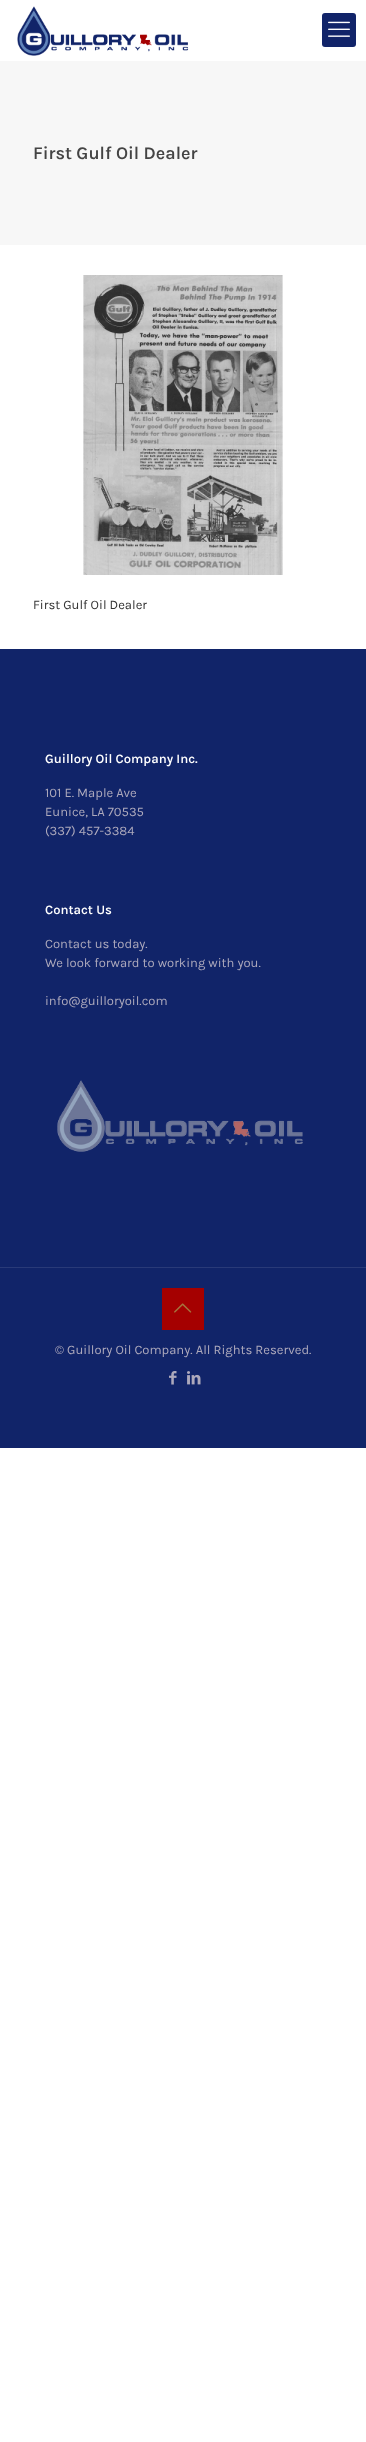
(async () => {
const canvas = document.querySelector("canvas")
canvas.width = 366
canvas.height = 2442
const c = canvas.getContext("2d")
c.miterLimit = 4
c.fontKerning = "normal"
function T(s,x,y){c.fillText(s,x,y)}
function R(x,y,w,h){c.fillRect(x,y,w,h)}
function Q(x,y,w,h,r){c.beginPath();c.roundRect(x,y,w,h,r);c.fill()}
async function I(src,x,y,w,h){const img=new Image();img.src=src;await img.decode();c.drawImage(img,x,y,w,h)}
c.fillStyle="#fff"
R(0,0,366,2442)
await I("1.png",17,6,172,50)
c.fillStyle="#112469"
Q(322,13,34,34,3)
await I("2.png",328,21,22,16)
c.fillStyle="#f7f7f7"
R(0,61,366,184)
c.font="600 18px Karla"
c.fillStyle="#444"
T("First Gulf Oil Dealer",33,159)
await I("3.png",83,275,200,300)
c.font="13px Karla"
c.fillStyle="#333"
T("First Gulf Oil Dealer",33,609)
c.fillStyle="#112469"
R(0,649,366,799)
c.font="600 13px Karla"
c.fillStyle="#fff"
T("Guillory Oil Company Inc.",45,763)
c.font="13px Karla"
c.fillStyle="#ada9bc"
T("101 E. Maple Ave",45,797)
T("Eunice, LA 70535",45,816)
T("(337) 457-3384",45,835)
c.font="600 13px Karla"
c.fillStyle="#fff"
T("Contact Us",45,914)
c.font="13px Karla"
c.fillStyle="#ada9bc"
T("Contact us today.",45,948)
T("We look forward to working with you.",45,967)
T("info@guilloryoil.com",45,1005)
await I("4.png",57,1080,246,72)
c.fillStyle="#293a78"
R(0,1267,366,1)
c.fillStyle="#a50000"
R(162,1288,42,42)
await I("5.png",174,1303,18,10)
c.fillStyle="#ada9bc"
T("© Guillory Oil Company. All Rights Reserved.",55,1354)
await I("6.png",169,1371,8,14)
await I("7.png",187,1371,14,14)
})()
